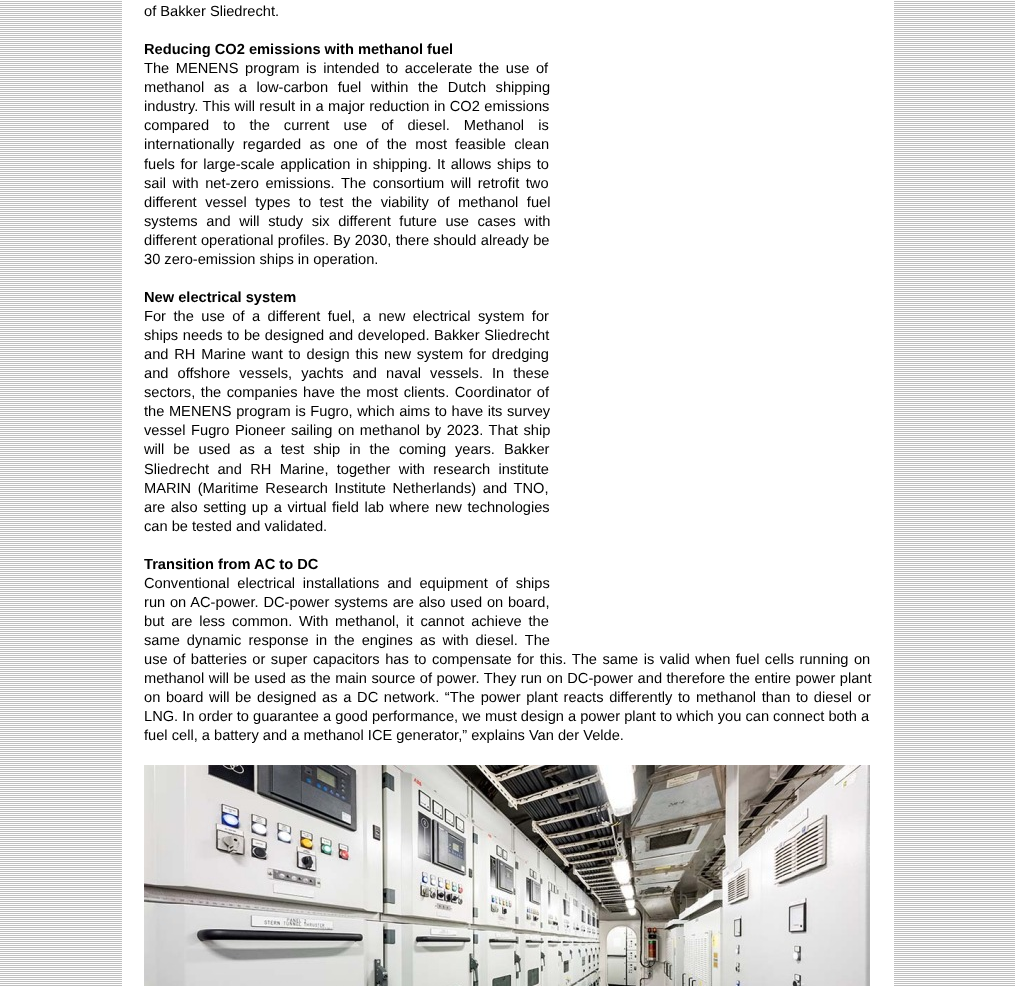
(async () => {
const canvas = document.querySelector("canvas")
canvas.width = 1015
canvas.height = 986
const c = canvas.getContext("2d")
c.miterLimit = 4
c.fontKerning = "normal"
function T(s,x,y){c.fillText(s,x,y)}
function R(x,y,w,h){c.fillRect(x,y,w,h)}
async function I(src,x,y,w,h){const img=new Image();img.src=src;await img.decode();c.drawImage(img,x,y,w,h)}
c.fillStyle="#fff"
R(0,0,1015,986)
await I("1.png",0,1,1015,985)
R(122,1,772,985)
c.font="14.65px Liberation Sans"
c.fillStyle="#000"
T("of Bakker Sliedrecht.",144,16)
c.font="bold 14.65px Liberation Sans"
T("Reducing CO2 emissions with methanol fuel",144,54)
c.wordSpacing="2.5px"
c.font="14.65px Liberation Sans"
T("The MENENS program is intended to accelerate the use of",144,73)
c.wordSpacing="5.5px"
T("methanol as a low-carbon fuel within the Dutch shipping",144,92)
c.wordSpacing="0.4px"
T("industry. This will result in a major reduction in CO2 emissions",144,111)
c.wordSpacing="10px"
T("compared to the current use of diesel. Methanol is",144,130)
c.wordSpacing="4.25px"
T("internationally regarded as one of the most feasible clean",144,149)
c.wordSpacing="1.5px"
T("fuels for large-scale application in shipping. It allows ships to",144,169)
c.wordSpacing="2.5px"
T("sail with net-zero emissions. The consortium will retrofit two",144,188)
c.wordSpacing="4.5px"
T("different vessel types to test the viability of methanol fuel",144,207)
T("systems and will study six different future use cases with",144,226)
c.wordSpacing="0.25px"
T("different operational profiles. By 2030, there should already be",144,245)
c.wordSpacing="0px"
T("30 zero-emission ships in operation.",144,264)
c.font="bold 14.65px Liberation Sans"
T("New electrical system",144,302)
c.wordSpacing="3.4px"
c.font="14.65px Liberation Sans"
T("For the use of a different fuel, a new electrical system for",144,321)
c.wordSpacing="0.5px"
T("ships needs to be designed and developed. Bakker Sliedrecht",144,340)
c.wordSpacing="1.75px"
T("and RH Marine want to design this new system for dredging",144,359)
c.wordSpacing="5px"
T("and offshore vessels, yachts and naval vessels. In these",144,378)
c.wordSpacing="1.5px"
T("sectors, the companies have the most clients. Coordinator of",144,397)
c.wordSpacing="0.5px"
T("the MENENS program is Fugro, which aims to have its survey",144,416)
c.wordSpacing="1.5px"
T("vessel Fugro Pioneer sailing on methanol by 2023. That ship",144,435)
c.wordSpacing="4.9px"
T("will be used as a test ship in the coming years. Bakker",144,454)
c.wordSpacing="4.25px"
T("Sliedrecht and RH Marine, together with research institute",144,474)
c.wordSpacing="2.5px"
T("MARIN (Maritime Research Institute Netherlands) and TNO,",144,493)
c.wordSpacing="1.5px"
T("are also setting up a virtual field lab where new technologies",144,512)
c.wordSpacing="0px"
T("can be tested and validated.",144,531)
c.font="bold 14.65px Liberation Sans"
T("Transition from AC to DC",144,569)
c.wordSpacing="3.75px"
c.font="14.65px Liberation Sans"
T("Conventional electrical installations and equipment of ships",144,588)
c.wordSpacing="0.75px"
T("run on AC-power. DC-power systems are also used on board,",144,607)
c.wordSpacing="2.75px"
T("but are less common. With methanol, it cannot achieve the",144,626)
c.wordSpacing="3px"
T("same dynamic response in the engines as with diesel. The",144,645)
c.wordSpacing="1.4px"
T("use of batteries or super capacitors has to compensate for this. The same is valid when fuel cells running on",144,664)
c.wordSpacing="0.4px"
T("methanol will be used as the main source of power. They run on DC-power and therefore the entire power plant",144,683)
c.wordSpacing="1.6px"
T("on board will be designed as a DC network. “The power plant reacts differently to methanol than to diesel or",144,702)
c.wordSpacing="0px"
T("LNG. In order to guarantee a good performance, we must design a power plant to which you can connect both a",144,721)
T("fuel cell, a battery and a methanol ICE generator,” explains Van der Velde.",144,740)
await I("2.png",144,765,726,221)
})()
